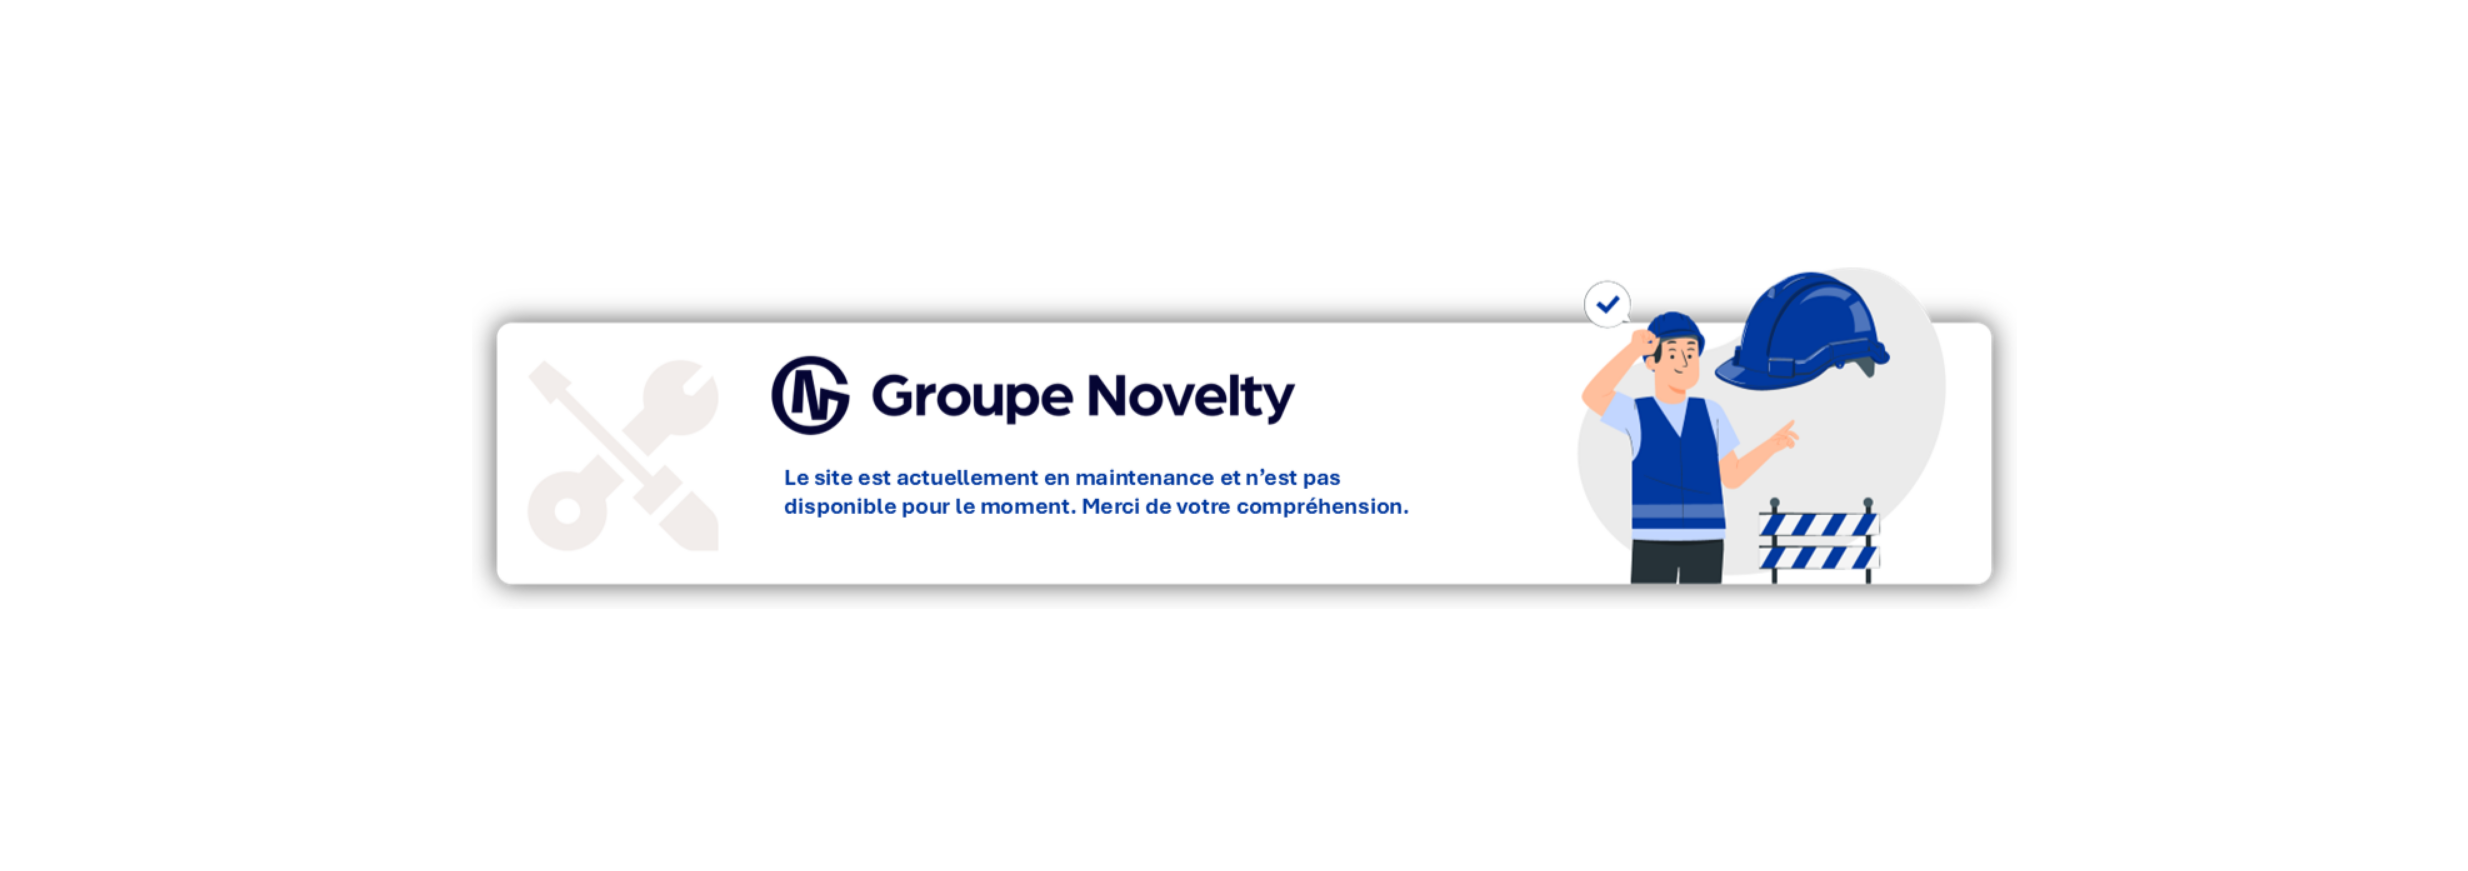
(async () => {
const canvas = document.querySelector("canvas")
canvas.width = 2468
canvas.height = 871
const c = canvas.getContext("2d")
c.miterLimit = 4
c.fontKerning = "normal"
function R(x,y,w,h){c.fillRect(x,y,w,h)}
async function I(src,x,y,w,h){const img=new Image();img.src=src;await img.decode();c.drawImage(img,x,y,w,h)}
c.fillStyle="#fff"
R(0,0,2468,871)
await I("1.png",472,267,1545,342)
})()
